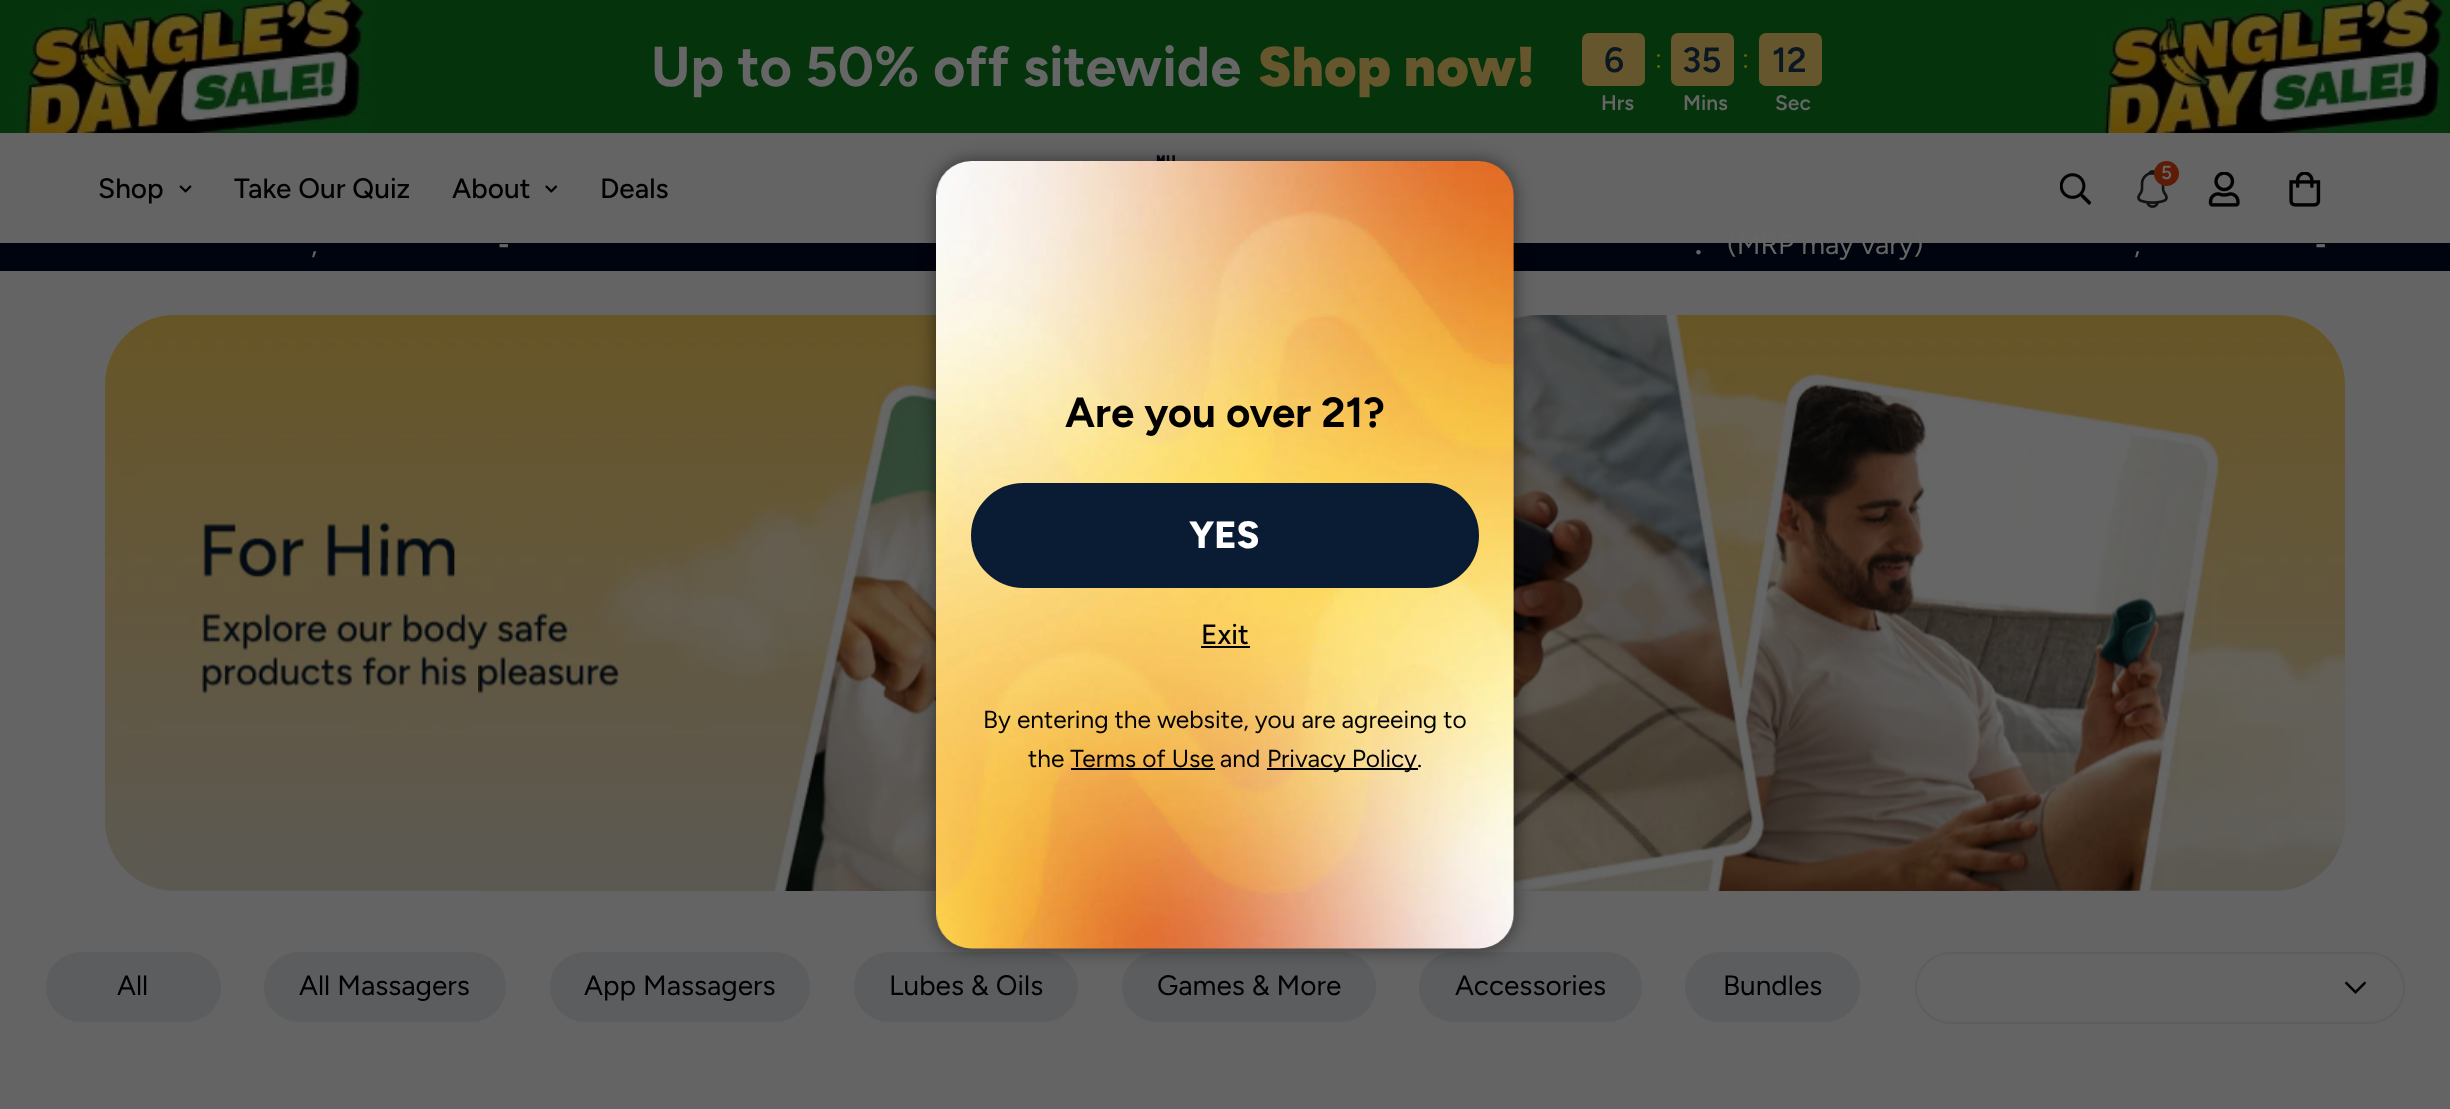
(async () => {
const canvas = document.querySelector("canvas")
canvas.width = 2450
canvas.height = 1109
const c = canvas.getContext("2d")
c.miterLimit = 4
c.fontKerning = "normal"
function T(s,x,y){c.fillText(s,x,y)}
function R(x,y,w,h){c.fillRect(x,y,w,h)}
function Q(x,y,w,h,r){c.beginPath();c.roundRect(x,y,w,h,r);c.fill()}
async function I(src,x,y,w,h){const img=new Image();img.src=src;await img.decode();c.drawImage(img,x,y,w,h)}
c.fillStyle="#656464"
R(0,0,2450,1109)
await I("1.png",0,0,2450,133)
c.font="bold 56px Figtree"
c.fillStyle="#666"
T("Up to 50% off sitewide",651,86)
c.font="900 56px Figtree"
c.fillStyle="#66562d"
T("Shop now!",1258,86)
Q(1582,33,63,53,7)
c.font="600 35px Figtree"
c.fillStyle="#0b1822"
T("6",1604,72)
c.font="600 21px Figtree"
c.fillStyle="#666"
T("Hrs",1601,110)
c.font="28px Figtree"
c.fillStyle="#660"
T(":",1655,68)
c.fillStyle="#66562d"
Q(1671,33,63,53,7)
c.font="600 35px Figtree"
c.fillStyle="#0b1822"
T("35",1682,72)
c.font="600 21px Figtree"
c.fillStyle="#666"
T("Mins",1683,110)
c.font="28px Figtree"
c.fillStyle="#660"
T(":",1742,68)
c.fillStyle="#66562d"
Q(1759,33,63,53,7)
c.font="600 35px Figtree"
c.fillStyle="#0b1822"
T("12",1772,72)
c.font="600 21px Figtree"
c.fillStyle="#666"
T("Sec",1775,110)
await I("2.png",1156,154,19,7)
await I("3.png",2060,173,31,32)
await I("4.png",2137,170,31,38)
c.fillStyle="#5c1c08"
c.beginPath()
c.arc(2166.5,173.5,12.5,0,7)
c.fill()
c.font="600 19px Figtree"
c.fillStyle="#666"
T("5",2161,179)
await I("5.png",2208,172,32,35)
await I("6.png",2289,172,32,35)
c.font="500 28px Figtree"
c.fillStyle="#000"
T("Shop",98,198)
await I("7.png",179,185,13,8)
T("Take Our Quiz",234,198)
T("About",452,198)
await I("8.png",545,185,13,8)
T("Deals",600,198)
c.fillStyle="#00040e"
R(0,243,2450,28)
c.font="bold 28px Figtree"
c.fillStyle="#666"
T("-",498,254)
c.font="28px Figtree"
T("(MRP may vary)",1727,254)
c.font="bold 28px Figtree"
T("-",2315,254)
c.font="28px Figtree"
T(",",311,254)
c.font="bold 28px Figtree"
T(".",1695,254)
c.font="28px Figtree"
T(",",2134,254)
await I("10.png",105,315,2240,576)
c.fillStyle="#5c5d5e"
Q(854,952,224,70,35)
Q(1122,952,254,70,35)
Q(1419,952,223,70,35)
c.fillStyle="#00000080"
c.filter="blur(9px)"
c.beginPath()
c.roundRect(936,161,578,788,35)
c.fill()
c.filter="none"
await I("9.png",936,161,578,788)
c.font="bold 42px Figtree"
c.fillStyle="#000"
T("Are you over 21?",1065,427)
c.fillStyle="#091c33"
c.beginPath()
c.roundRect(972,484,506,103,51.5)
c.fill()
c.strokeStyle="#091c33"
c.lineWidth=2
c.stroke()
c.font="800 38px Figtree"
c.fillStyle="#fff"
T("YES",1189,548)
c.font="500 28px Figtree"
c.fillStyle="#000"
T("Exit",1201,644)
R(1201,646,49,2)
c.font="24.5px Figtree"
T("By entering the website, you are agreeing to",983,728)
T("the Terms of Use and",1028,767)
R(1267,768,151,2)
T("Privacy Policy.",1267,767)
R(1071,768,144,2)
c.fillStyle="#5c5d5e"
Q(46,952,175,70,35)
c.font="28px Figtree"
c.fillStyle="#000"
T("All",117,995)
c.fillStyle="#5c5d5e"
Q(264,952,242,70,35)
c.fillStyle="#000"
T("All Massagers",299,995)
c.fillStyle="#5c5d5e"
Q(550,952,260,70,35)
c.fillStyle="#000"
T("App Massagers",584,995)
T("Lubes & Oils",889,995)
T("Games & More",1157,995)
T("Accessories",1455,995)
c.fillStyle="#5c5d5e"
Q(1685,952,175,70,35)
c.fillStyle="#000"
T("Bundles",1723,995)
c.beginPath()
c.roundRect(1916,953,488,70,35)
c.strokeStyle="#5e5e5e"
c.stroke()
await I("11.png",2344,981,22,13)
})()
